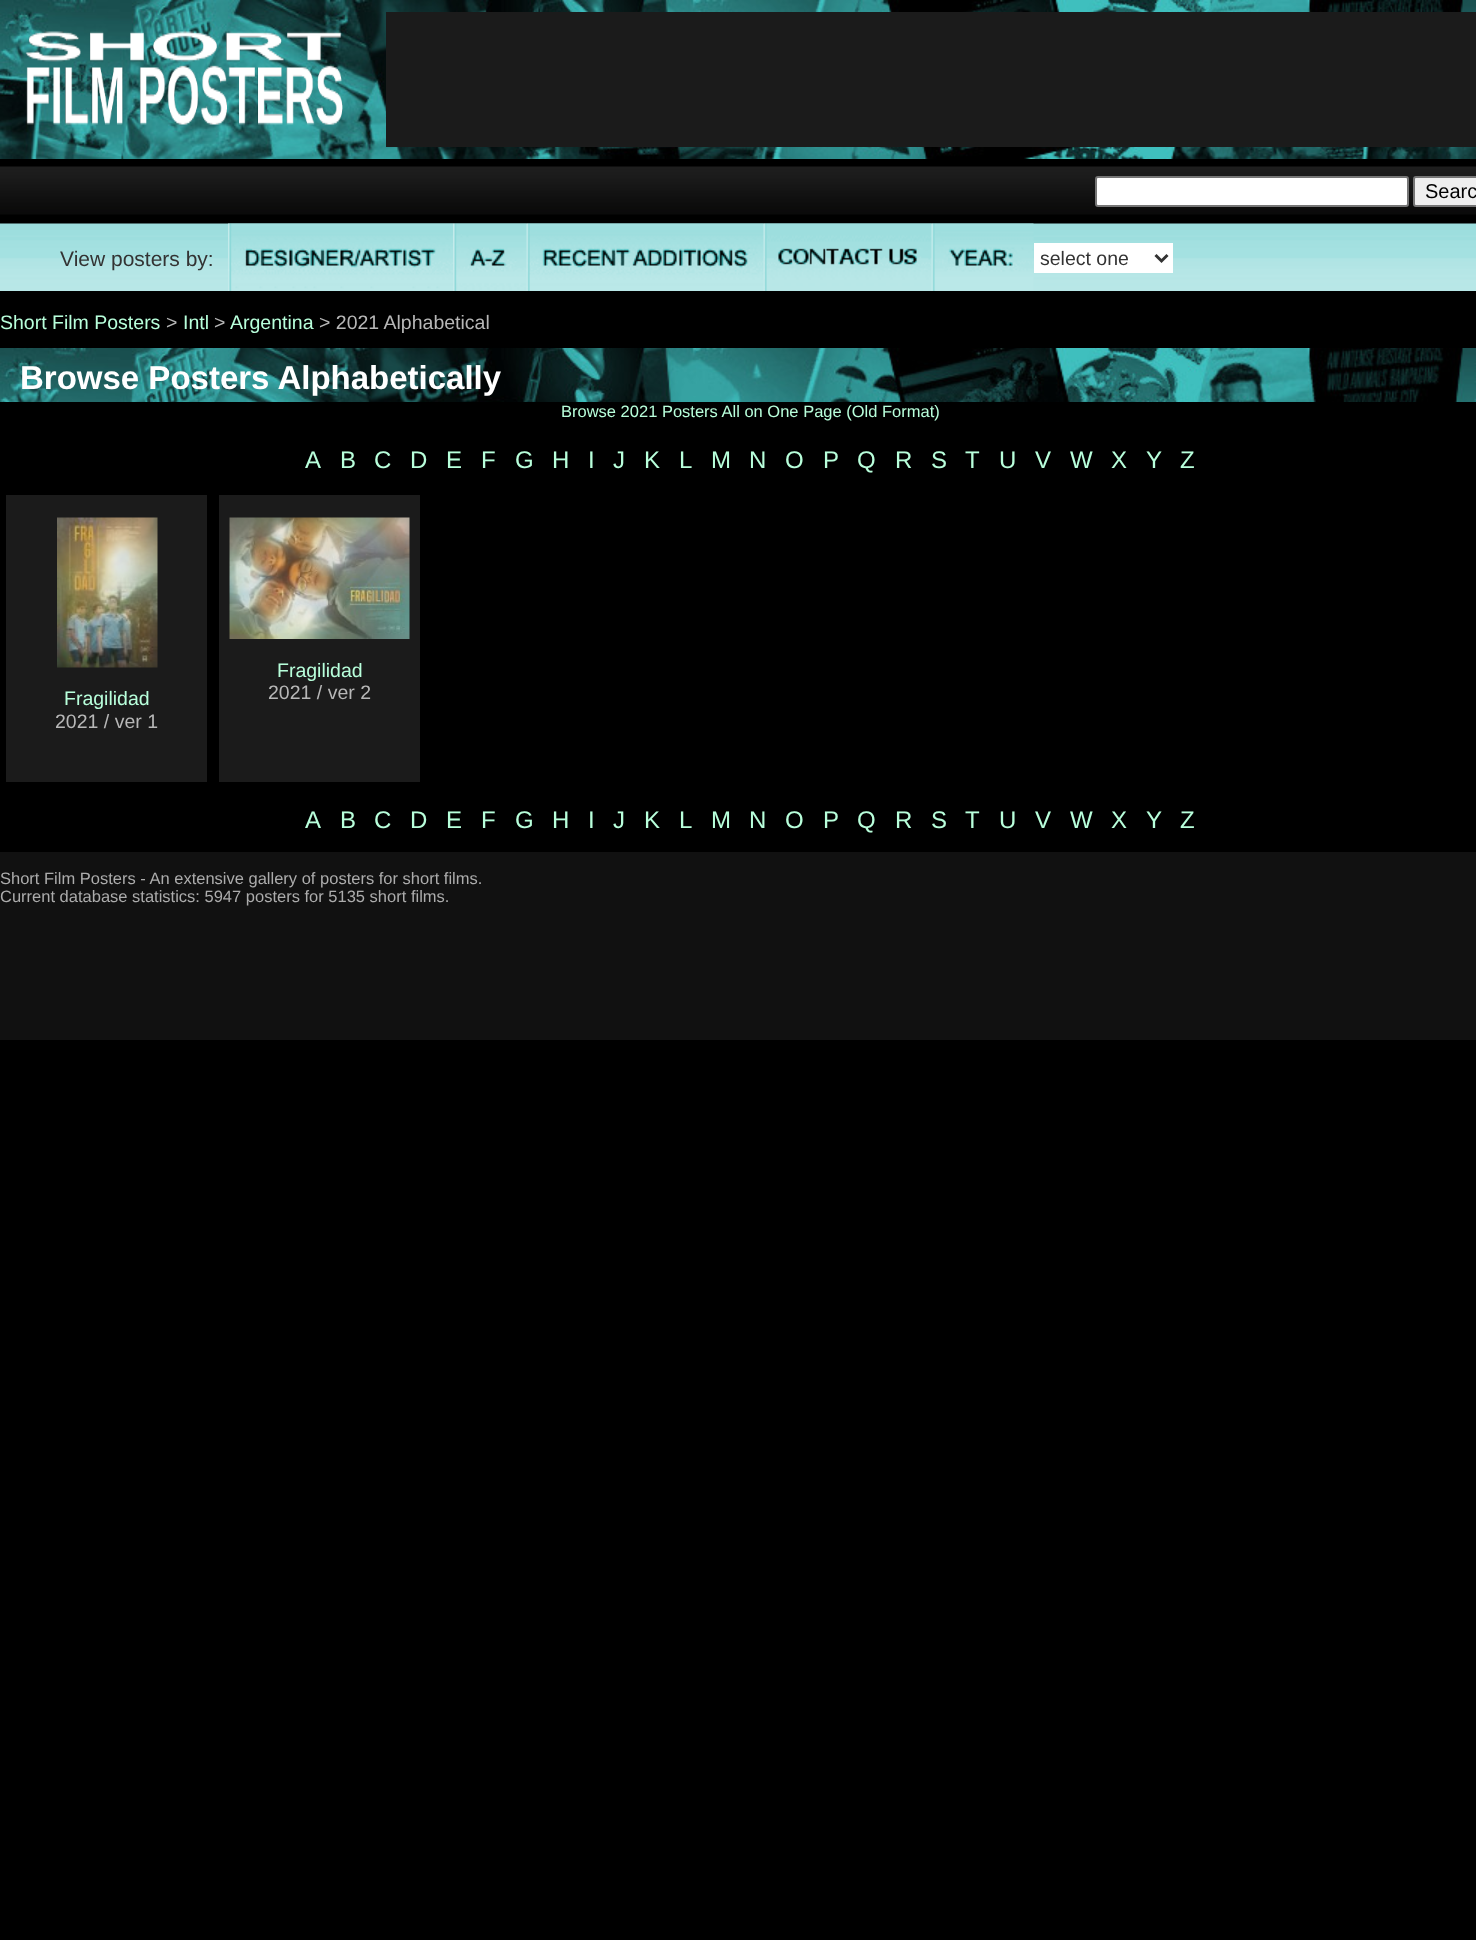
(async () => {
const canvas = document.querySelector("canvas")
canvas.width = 1476
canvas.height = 1940
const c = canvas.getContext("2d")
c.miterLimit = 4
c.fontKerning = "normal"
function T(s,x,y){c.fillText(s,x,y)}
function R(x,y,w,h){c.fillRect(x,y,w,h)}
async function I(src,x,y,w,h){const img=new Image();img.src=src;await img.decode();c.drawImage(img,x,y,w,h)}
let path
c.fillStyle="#000"
R(0,0,1476,1940)
await I("1.png",0,0,1476,159)
await I("2.png",25,31,318,94)
c.fillStyle="#1b1b1b"
R(386,12,1090,135)
await I("3.png",0,166,1476,49)
c.fillStyle="#fff"
c.beginPath()
c.roundRect(1096,177,312,29,2)
c.fill()
c.strokeStyle="#767676"
c.lineWidth=2
c.stroke()
c.fillStyle="#efefef"
c.beginPath()
c.roundRect(1414,177,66,29,2)
c.fill()
c.stroke()
c.font="20px Liberation Sans"
c.fillStyle="#000"
T("Searc",1425,198)
await I("4.png",0,223,1476,68)
c.font="21px Liberation Sans"
c.fillStyle="#333"
T("View posters by:",60,266)
await I("5.png",228,223,225,68)
await I("6.png",453,223,74,68)
await I("7.png",526,223,238,68)
await I("8.png",763,223,169,68)
await I("9.png",931,223,103,68)
c.fillStyle="#fff"
R(1034,243,139,30)
path = new Path2D("M1155.5 255l6 6l6-6")
c.strokeStyle="#333"
c.lineWidth=3
c.stroke(path)
c.font="19.5px Liberation Sans"
c.fillStyle="#333"
T("select one",1040,265)
c.fillStyle="#b8ffdb"
T("Short Film Posters",0,329)
c.fillStyle="#b7b7b7"
T(">",166,329)
c.fillStyle="#b8ffdb"
T("Intl",183,329)
c.fillStyle="#b7b7b7"
T(">",214,329)
c.fillStyle="#b8ffdb"
T("Argentina",230,329)
c.fillStyle="#b7b7b7"
T("> 2021 Alphabetical",319,329)
await I("10.png",0,348,1476,54)
c.font="bold 33px Liberation Sans"
c.fillStyle="#fff"
T("Browse Posters Alphabetically",20,389)
c.font="16.5px Liberation Sans"
c.fillStyle="#b8ffdb"
T("Browse 2021 Posters All on One Page (Old Format)",561,417)
c.font="24px Liberation Sans"
T("A",305,468)
T("B",340,468)
T("C",374,468)
T("D",410,468)
T("E",446,468)
T("F",481,468)
T("G",515,468)
T("H",552,468)
T("I",588,468)
T("J",613,468)
T("K",644,468)
T("L",679,468)
T("M",711,468)
T("N",749,468)
T("O",785,468)
T("P",823,468)
T("Q",857,468)
T("R",895,468)
T("S",931,468)
T("T",965,468)
T("U",999,468)
T("V",1035,468)
T("W",1070,468)
T("X",1111,468)
T("Y",1146,468)
T("Z",1180,468)
c.fillStyle="#1b1b1b"
R(219,495,201,287)
await I("11.png",229,517,181,122)
c.font="19.5px Liberation Sans"
c.fillStyle="#b8ffdb"
T("Fragilidad",277,677)
c.fillStyle="#b7b7b7"
T("2021 / ver 2",268,699)
c.fillStyle="#1b1b1b"
R(6,495,201,287)
await I("12.png",57,517,101,151)
c.fillStyle="#b8ffdb"
T("Fragilidad",64,705)
c.fillStyle="#b7b7b7"
T("2021 / ver 1",55,728)
c.font="24px Liberation Sans"
c.fillStyle="#b8ffdb"
T("A",305,828)
T("B",340,828)
T("C",374,828)
T("D",410,828)
T("E",446,828)
T("F",481,828)
T("G",515,828)
T("H",552,828)
T("I",588,828)
T("J",613,828)
T("K",644,828)
T("L",679,828)
T("M",711,828)
T("N",749,828)
T("O",785,828)
T("P",823,828)
T("Q",857,828)
T("R",895,828)
T("S",931,828)
T("T",965,828)
T("U",999,828)
T("V",1035,828)
T("W",1070,828)
T("X",1111,828)
T("Y",1146,828)
T("Z",1180,828)
c.fillStyle="#111"
R(0,852,1476,188)
c.font="16.5px Liberation Sans"
c.fillStyle="#acacac"
T("Short Film Posters - An extensive gallery of posters for short films.",0,884)
T("Current database statistics: 5947 posters for 5135 short films.",0,902)
})()
